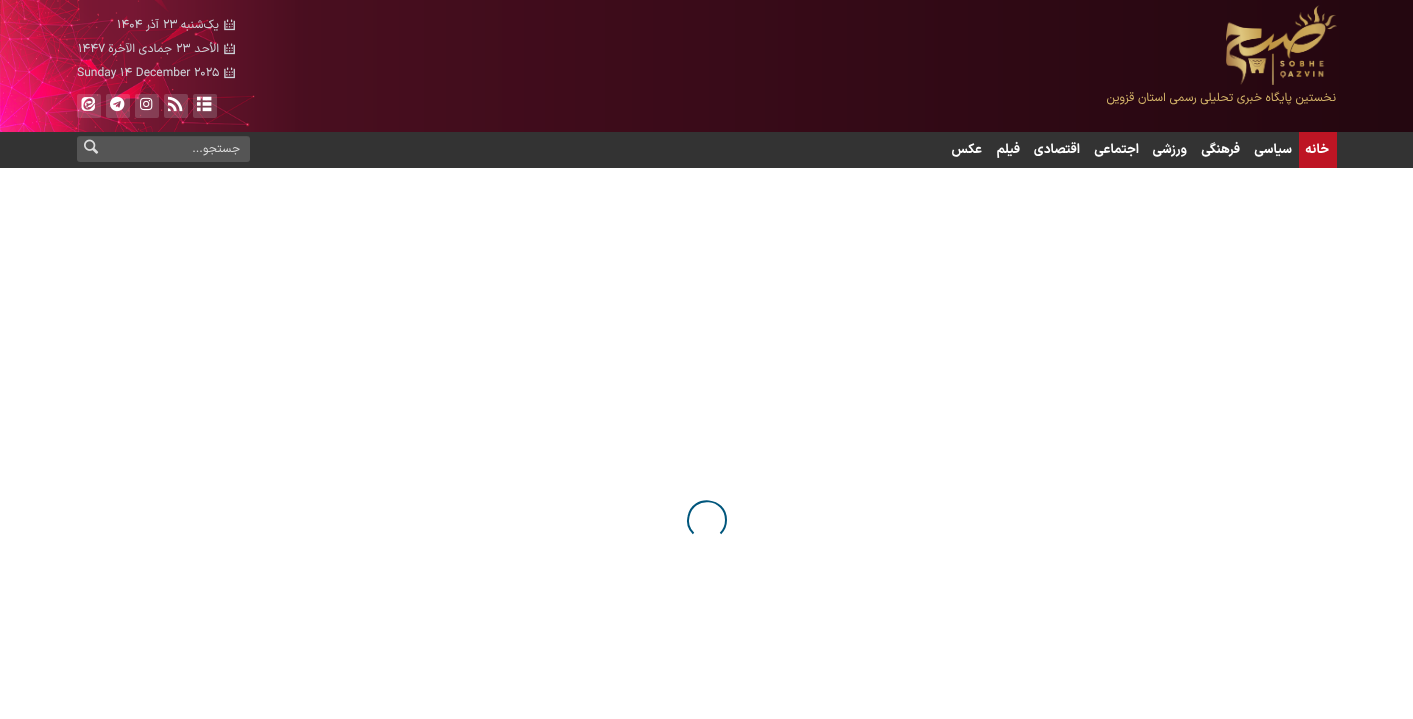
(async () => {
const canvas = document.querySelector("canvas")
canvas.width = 1413
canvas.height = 719
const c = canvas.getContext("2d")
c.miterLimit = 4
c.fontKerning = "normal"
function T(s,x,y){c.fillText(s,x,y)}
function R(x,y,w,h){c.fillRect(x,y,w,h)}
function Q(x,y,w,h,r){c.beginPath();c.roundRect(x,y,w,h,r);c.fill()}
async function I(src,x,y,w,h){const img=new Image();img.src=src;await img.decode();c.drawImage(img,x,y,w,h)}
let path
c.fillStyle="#fff"
R(0,0,1413,719)
await I("1.png",0,0,1413,132)
await I("2.png",224,19,11,12)
c.direction="rtl"
c.font="12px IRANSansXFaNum"
c.fillStyle="#ced4da"
T("یک‌شنبه",219,28)
c.direction="ltr"
T("۲۳",163,28)
c.direction="rtl"
T("آذر",159,28)
c.direction="ltr"
T("۱۴۰۴",117,28)
await I("2.png",224,43,11,12)
c.direction="rtl"
T("الأحد",219,52)
c.direction="ltr"
T("٢٣",176,52)
c.direction="rtl"
T("جمادى الآخرة",172,52)
c.direction="ltr"
T("١٤٤٧",78,52)
await I("2.png",224,67,11,12)
T("Sunday 14 December 2025",77,76)
c.fillStyle="#dee2e633"
Q(193,94,24,24,2)
await I("3.png",197,96,15,16)
Q(164,94,24,24,2)
await I("4.png",168,96,15,16)
Q(135,94,24,24,2)
await I("5.png",140,97,13,14)
Q(106,94,24,24,2)
await I("6.png",110,96,15,16)
Q(77,94,24,24,2)
await I("7.png",81,97,14,14)
await I("8.png",1226,5,111,80)
c.direction="rtl"
c.fillStyle="#d4b469"
T("نخستین پایگاه خبری تحلیلی رسمی استان قزوین",1336,101)
c.fillStyle="#333"
R(0,132,1413,36)
c.fillStyle="#be1524"
R(1299,132,38,36)
c.font="bold 13px IRANSansXFaNum"
c.fillStyle="#fff"
T("خانه",1329,153)
T("سیاسی",1292,153)
T("فرهنگی",1240,153)
T("ورزشی",1187,153)
T("اجتماعی",1139,153)
T("اقتصادی",1080,153)
T("فیلم",1020,153)
T("عکس",982,153)
c.fillStyle="#555"
Q(77,136,173,26,3)
c.fillStyle="#00000012"
path = new Path2D("M80 137h167c2 0 3 1 3 3v-1c0-2-1-3-3-3h-167c-2 0-3 1-3 3v1c0-2 1-3 3-3z")
c.fill(path)
c.font="12px IRANSansXFaNum"
c.fillStyle="#ddd"
T("جستجو...",240,152)
await I("9.png",84,139,15,15)
path = new Path2D("M693.5 533.5c-4.5-4.5-6.5-11-5-17c4.5-22.5 37.5-19 37.5 3.5c0 5-2 10-5.5 13.5")
c.strokeStyle="#00567c"
c.lineWidth=2
c.stroke(path)
})()
